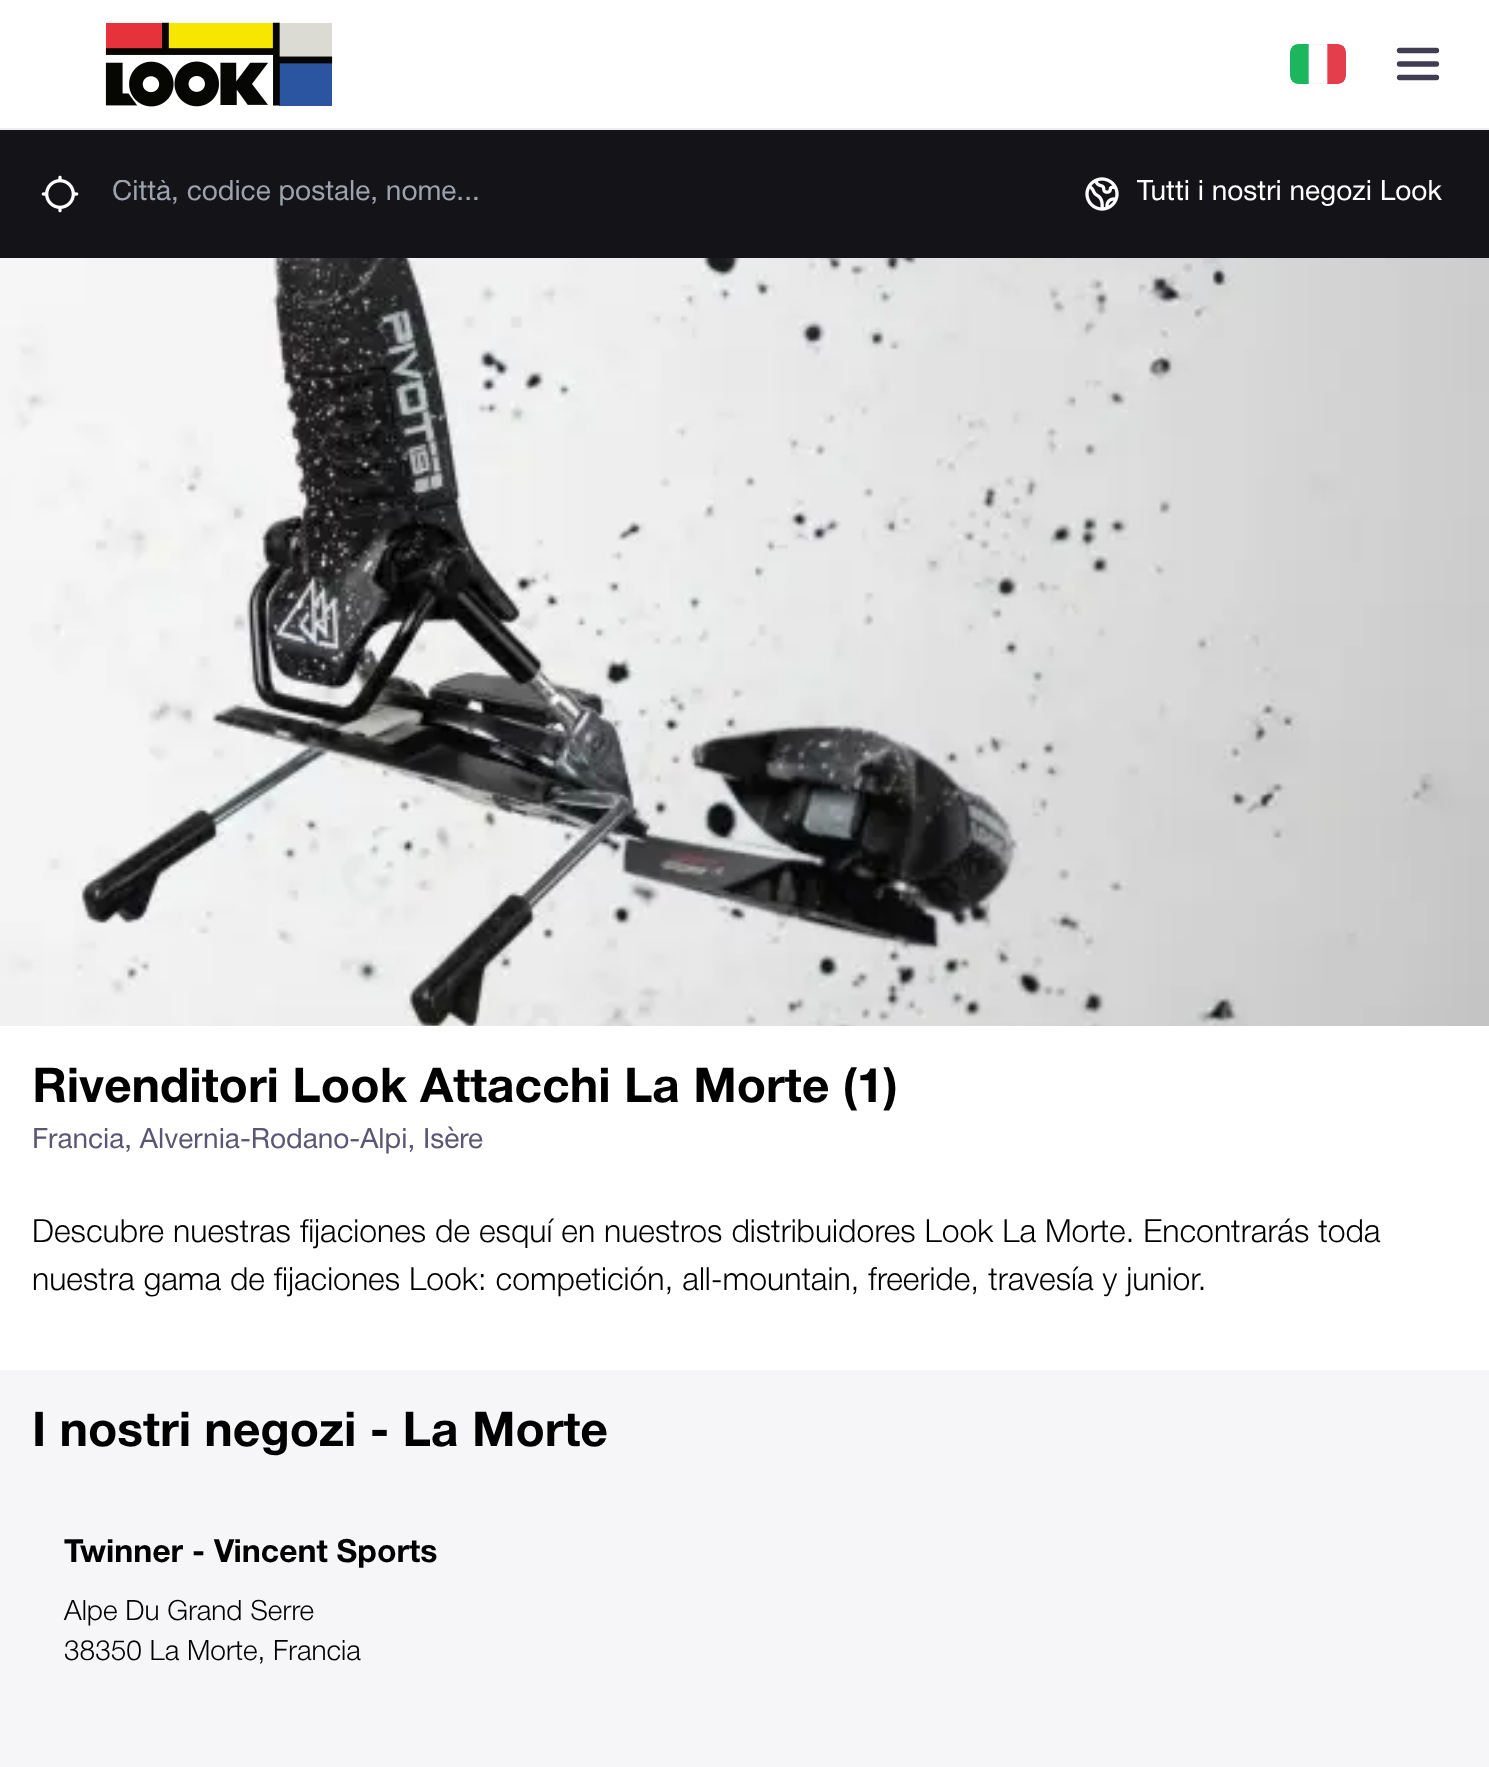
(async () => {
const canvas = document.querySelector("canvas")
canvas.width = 1489
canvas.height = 1767
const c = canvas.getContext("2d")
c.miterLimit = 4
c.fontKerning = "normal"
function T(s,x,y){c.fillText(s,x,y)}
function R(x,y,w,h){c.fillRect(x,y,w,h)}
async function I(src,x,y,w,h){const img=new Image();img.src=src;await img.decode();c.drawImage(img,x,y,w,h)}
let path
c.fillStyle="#fff"
R(0,0,1489,1767)
c.fillStyle="#eeedf1"
R(0,128,1489,2)
await I("1.png",105,22,228,85)
await I("2.png",1290,44,56,40)
path = new Path2D("M1399.5 50.5h37m-37 13.5h37m-37 13.5h37")
c.strokeStyle="#3f3d4f"
c.lineWidth=5.3
c.lineCap="round"
c.lineJoin="round"
c.stroke(path)
c.fillStyle="#141318"
R(0,130,1489,128)
await I("3.png",41,175,38,38)
c.save()
c.beginPath()
c.rect(112,180,624,28)
c.clip()
c.font="28px Helvetica Neue"
c.fillStyle="#9ca3af"
T("Città, codice postale, nome...",112,200)
c.restore()
await I("4.png",1085,177,34,34)
c.font="28px Helvetica Neue"
c.fillStyle="#fff"
T("Tutti i nostri negozi Look",1137,200)
await I("5.png",0,258,1489,768)
c.font="bold 48px Helvetica Neue"
c.fillStyle="#000"
T("Rivenditori Look Attacchi La Morte (1)",32,1102)
c.font="28px Helvetica Neue"
c.fillStyle="#5a5673"
T("Francia, Alvernia-Rodano-Alpi, Isère",32,1148)
c.font="300 32px Helvetica Neue"
c.fillStyle="#000"
T("Descubre nuestras fijaciones de esquí en nuestros distribuidores Look La Morte. Encontrarás toda",32,1242)
T("nuestra gama de fijaciones Look: competición, all-mountain, freeride, travesía y junior.",32,1290)
c.fillStyle="#f6f6f9"
R(0,1370,1489,397)
c.font="bold 48px Helvetica Neue"
c.fillStyle="#000"
T("I nostri negozi - La Morte",32,1446)
c.font="bold 32px Helvetica Neue"
T("Twinner - Vincent Sports",64,1562)
c.font="300 28px Helvetica Neue"
T("Alpe Du Grand Serre",64,1620)
T("38350 La Morte, Francia",64,1660)
})()
